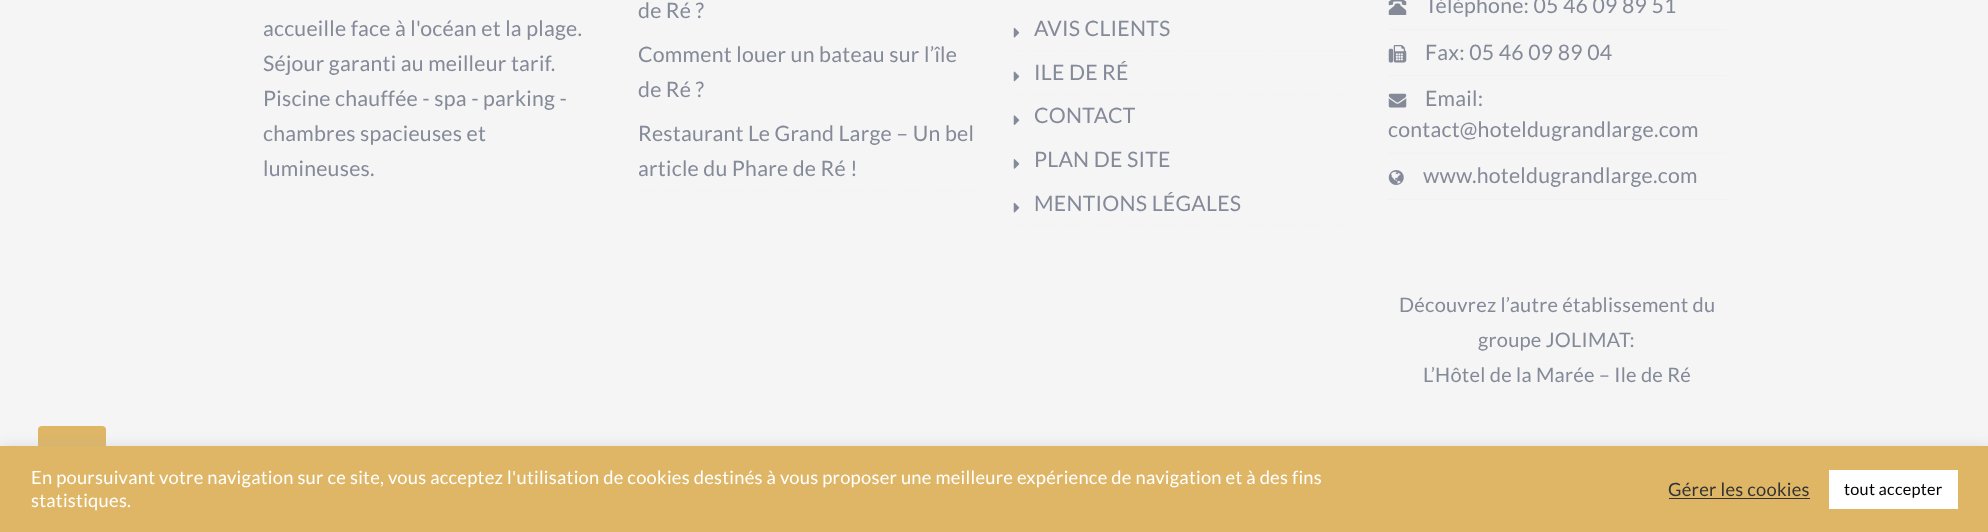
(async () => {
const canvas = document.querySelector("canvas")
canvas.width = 1988
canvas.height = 532
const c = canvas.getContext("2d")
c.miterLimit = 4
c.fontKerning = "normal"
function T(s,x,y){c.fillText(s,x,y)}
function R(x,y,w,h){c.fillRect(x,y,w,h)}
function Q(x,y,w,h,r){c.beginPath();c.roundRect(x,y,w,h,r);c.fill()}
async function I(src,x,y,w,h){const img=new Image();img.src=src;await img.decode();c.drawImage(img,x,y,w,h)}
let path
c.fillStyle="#f5f5f5"
R(0,0,1988,532)
c.letterSpacing="0.25px"
c.font="21.25px Lato"
c.fillStyle="#858a99"
T("accueille face à l'océan et la plage.",263,36)
T("Séjour garanti au meilleur tarif.",263,71)
T("Piscine chauffée - spa - parking -",263,106)
T("chambres spacieuses et",263,141)
T("lumineuses.",263,176)
T("de Ré ?",638,18)
T("Comment louer un bateau sur l’île",638,62)
T("de Ré ?",638,97)
path = new Path2D("M639 190.5h337")
c.strokeStyle="#f2f2f2"
c.lineWidth=1.2
c.setLineDash([3.75,2.55])
c.stroke(path)
T("Restaurant Le Grand Large – Un bel",638,141)
T("article du Phare de Ré !",638,176)
path = new Path2D("M1014 50.5h337")
c.stroke(path)
await I("1.png",1013,27,7,11)
T("AVIS CLIENTS",1034,36)
path = new Path2D("M1014 94.5h337")
c.stroke(path)
await I("2.png",1013,71,7,11)
T("ILE DE RÉ",1034,80)
await I("3.png",1013,115,7,10)
T("CONTACT",1034,123)
await I("4.png",1013,159,7,10)
T("PLAN DE SITE",1034,167)
path = new Path2D("M1014 225.5h337")
c.stroke(path)
await I("1.png",1013,202,7,11)
T("MENTIONS LÉGALES",1034,211)
path = new Path2D("M1389 29.5h337")
c.strokeStyle="#ededed"
c.setLineDash([1.25,1.25])
c.stroke(path)
await I("5.png",1388,0,19,15)
T("Téléphone: 05 46 09 89 51",1425,13)
path = new Path2D("M1389 75.5h337")
c.stroke(path)
await I("6.png",1388,45,19,18)
T("Fax: 05 46 09 89 04",1425,60)
path = new Path2D("M1389 153h337")
c.stroke(path)
await I("7.png",1388,93,19,15)
T("Email:",1425,106)
T("contact@hoteldugrandlarge.com",1388,137)
path = new Path2D("M1389 199.5h337")
c.stroke(path)
await I("8.png",1388,170,16,15)
T("www.hoteldugrandlarge.com",1423,183)
c.font="20px Lato"
T("Découvrez l’autre établissement du",1399,312)
T("groupe JOLIMAT:",1478,347)
T("L’Hôtel de la Marée – Ile de Ré",1423,382)
c.fillStyle="#deb666"
Q(38,426,68,69,4)
c.fillStyle="#acabab4d"
c.filter="blur(6px)"
c.beginPath()
c.rect(0,445,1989,86)
c.fill()
c.filter="none"
c.fillStyle="#deb666"
R(0,446,1988,86)
c.font="18.33px Lato"
c.fillStyle="#fff"
T("En poursuivant votre navigation sur ce site, vous acceptez l'utilisation de cookies destinés à vous proposer une meilleure expérience de navigation et à des fins",31,484)
T("statistiques.",31,507)
c.fillStyle="#333"
T("Gérer les cookies",1668,496)
R(1669,498,141,1)
c.fillStyle="#fff"
R(1829,470,129,39)
c.font="16.25px Lato"
c.fillStyle="#000"
T("tout accepter",1844,495)
})()
